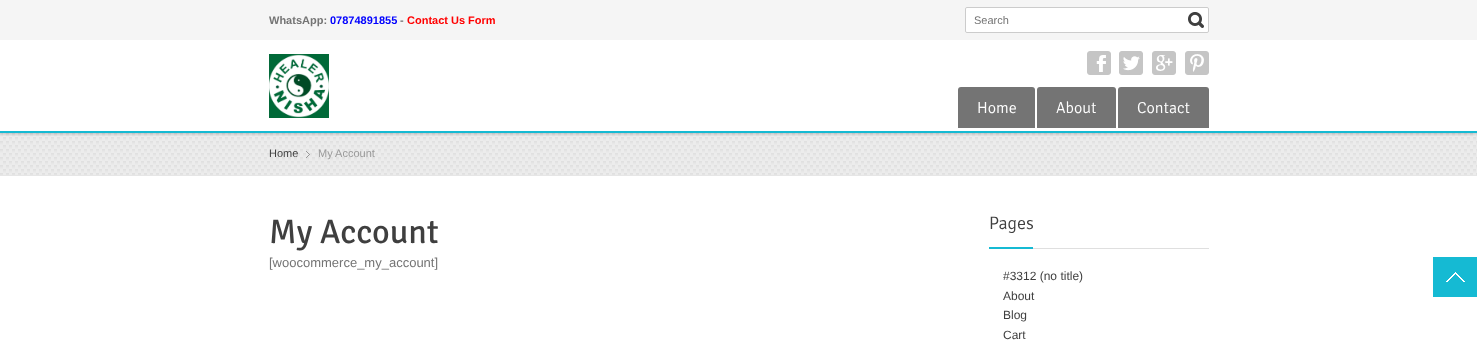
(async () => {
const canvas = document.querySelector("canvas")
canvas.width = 1477
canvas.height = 347
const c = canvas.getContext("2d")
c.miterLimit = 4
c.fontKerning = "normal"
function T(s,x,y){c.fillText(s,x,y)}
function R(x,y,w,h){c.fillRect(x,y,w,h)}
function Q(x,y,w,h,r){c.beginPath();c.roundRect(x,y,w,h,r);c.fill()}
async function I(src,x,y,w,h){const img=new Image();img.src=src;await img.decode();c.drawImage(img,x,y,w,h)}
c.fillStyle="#fff"
R(0,0,1477,347)
c.fillStyle="#ececec"
R(0,133,1477,42)
await I("7.png",0,133,1477,42)
c.save()
c.beginPath()
c.rect(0,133,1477,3)
c.clip()
c.fillStyle="#0000004d"
c.filter="blur(2px)"
c.beginPath()
c.rect(0,0,1477,133)
c.fill()
c.filter="none"
c.restore()
c.fillStyle="#15bad3"
R(0,131,1477,2)
c.fillStyle="#f5f5f5"
R(0,0,1477,40)
c.font="bold 11px Liberation Sans"
c.fillStyle="#747474"
T("WhatsApp:",269,24)
c.fillStyle="#00f"
T("07874891855",330,24)
c.fillStyle="#747474"
T("-",400,24)
c.fillStyle="#f00"
T("Contact Us Form",407,24)
c.fillStyle="#fff"
c.beginPath()
c.roundRect(965.5,7.5,243,25,1.5)
c.fill()
c.strokeStyle="#ccc"
c.stroke()
c.save()
c.beginPath()
c.roundRect(966,8,242,24,1)
c.clip()
Q(966,8,242,24,2)
c.restore()
c.font="11px Liberation Sans"
c.fillStyle="#747474"
T("Search",974,24)
await I("1.png",1188,12,16,16)
await I("2.png",269,54,60,64)
await I("3.png",1087,51,24,24)
await I("4.png",1119,51,24,24)
await I("5.png",1152,51,24,24)
await I("6.png",1185,51,24,24)
c.beginPath()
c.roundRect(958,87,77,42,[3,3,0,0])
c.fill()
c.fillStyle="#fff"
R(958,128,77,1)
c.font="300 16px Signika"
T("Home",977,113)
c.fillStyle="#747474"
c.beginPath()
c.roundRect(1037,87,79,42,[3,3,0,0])
c.fill()
c.fillStyle="#fff"
R(1037,128,79,1)
T("About",1056,113)
c.fillStyle="#747474"
c.beginPath()
c.roundRect(1118,87,91,42,[3,3,0,0])
c.fill()
c.fillStyle="#fff"
R(1118,128,91,1)
T("Contact",1137,113)
c.fillStyle="#e6e6e6"
R(0,175,1477,1)
c.font="11px Liberation Sans"
c.fillStyle="#3f3f3f"
T("Home",269,157)
await I("8.png",306,151,4,7)
c.fillStyle="#999"
T("My Account",318,157)
c.font="34px Signika"
c.fillStyle="#3f3f3f"
T("My Account",269,243)
c.font="13px Liberation Sans"
c.fillStyle="#747474"
T("[woocommerce_my_account]",269,267)
c.fillStyle="#dfdfdf"
R(1033,248,176,1)
c.fillStyle="#15bad3"
R(989,247,44,2)
c.font="300 18px Signika"
c.fillStyle="#3f3f3f"
T("Pages",989,229)
c.font="12px Liberation Sans"
T("#3312 (no title)",1003,280)
T("About",1003,300)
T("Blog",1003,319)
T("Cart",1003,339)
c.fillStyle="#15bad3"
R(1433,257,44,40)
await I("9.png",1446,272,19,10)
})()
